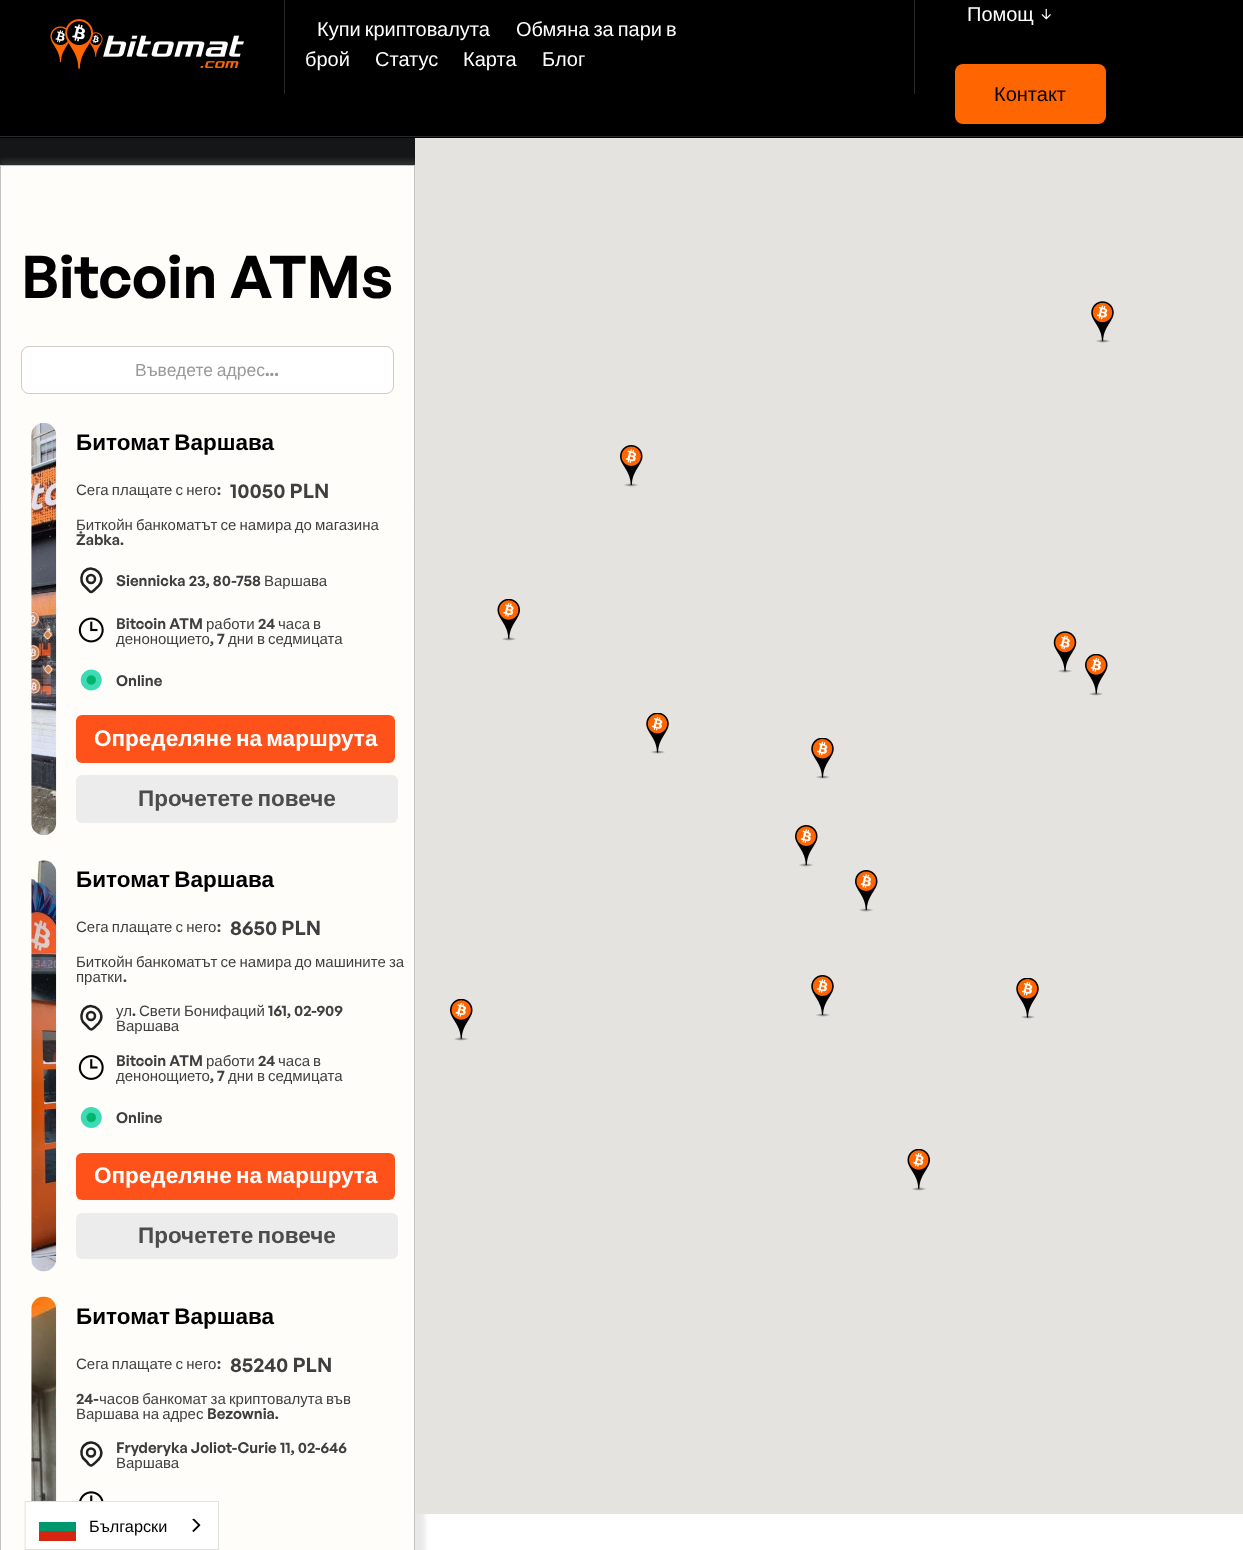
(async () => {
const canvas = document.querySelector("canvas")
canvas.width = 1243
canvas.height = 1550
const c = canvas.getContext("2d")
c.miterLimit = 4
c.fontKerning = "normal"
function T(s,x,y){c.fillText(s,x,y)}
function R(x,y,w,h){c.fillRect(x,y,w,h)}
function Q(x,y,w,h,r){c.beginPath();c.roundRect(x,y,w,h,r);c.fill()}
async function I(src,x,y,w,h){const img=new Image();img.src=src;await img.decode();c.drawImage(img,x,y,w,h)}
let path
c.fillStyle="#fff"
R(0,0,1243,1550)
c.fillStyle="#000"
R(0,0,1243,138)
c.fillStyle="#292929"
R(0,136,1243,1)
await I("1.png",50,19,194,50)
R(284,0,1,94)
c.wordSpacing="-1.5px"
c.font="20px Liberation Sans"
c.fillStyle="#fff"
T("Купи криптовалута",317,36)
T("Обмяна за пари в",516,36)
c.wordSpacing="0px"
T("брой",305,66)
T("Статус",375,66)
T("Карта",463,66)
T("Блог",542,66)
c.fillStyle="#292929"
R(914,0,1,94)
c.fillStyle="#fff"
T("Помощ",967,21)
await I("2.png",1041,9,10,11)
c.fillStyle="#ff6501"
Q(955,64,151,60,8)
c.fillStyle="#000"
T("Контакт",994,101)
c.fillStyle="#151617"
R(0,138,415,27)
c.fillStyle="#8c8c8c33"
c.filter="blur(2.5px)"
c.beginPath()
c.rect(0,160,425,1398)
c.fill()
c.filter="none"
c.fillStyle="#fffdfa"
c.beginPath()
c.rect(.5,165.5,414,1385)
c.fill()
c.strokeStyle="#c2c2c2"
c.stroke()
c.font="600 58.75px General Sans"
c.fillStyle="#000"
T("Bitcoin ATMs",21,298)
c.fillStyle="#fff"
c.beginPath()
c.roundRect(21.5,346.5,372,47,7.5)
c.fill()
c.strokeStyle="#ccc"
c.stroke()
c.wordSpacing="-1px"
c.font="17.5px Liberation Sans"
c.fillStyle="#999"
T("Въведете адрес",135,376)
c.wordSpacing="0px"
c.font="600 17.5px General Sans"
T("...",265,376)
await I("3.png",31,422,26,414)
c.wordSpacing="-2px"
c.font="bold 22.5px Liberation Sans"
c.fillStyle="#000"
T("Битомат Варшава",76,450)
c.wordSpacing="-1px"
c.font="15px Liberation Sans"
c.fillStyle="#403f3f"
T("Сега плащате с него",76,495)
c.wordSpacing="0px"
c.font="600 15px General Sans"
T(":",217,495)
c.font="600 20px General Sans"
T("10050 PLN",230,498)
c.wordSpacing="-1px"
c.font="15px Liberation Sans"
T("Биткойн банкоматът се намира до магазина",76,530)
c.wordSpacing="0px"
c.font="600 15px General Sans"
T("Żabka.",76,545)
c.beginPath()
c.arc(91,579,4,0,7)
c.strokeStyle="#212121"
c.lineWidth=2.5
c.stroke()
path = new Path2D("M98.5 586c-1.5 1-5 5.5-7 6c-2 0-3.5-2.5-4.5-3.5l-4-4c-2.5-4-2-9.5 1-13c9.5-9 23.5 5 14.5 14.5z")
c.lineCap="round"
c.lineJoin="round"
c.stroke(path)
T("Siennicka 23, 80-758",116,586)
c.font="15px Liberation Sans"
T("Варшава",264,586)
await I("4.png",78,617,26,26)
c.font="600 15px General Sans"
T("Bitcoin ATM",116,629)
c.font="15px Liberation Sans"
T("работи",206,629)
c.font="600 15px General Sans"
T("24",258,629)
c.font="15px Liberation Sans"
T("часа",278,629)
T("в",313,629)
T("денонощието",116,644)
c.font="600 15px General Sans"
T(", 7",210,644)
c.font="15px Liberation Sans"
T("дни",228,644)
T("в",257,644)
T("седмицата",268,644)
await I("5.png",80,669,22,22)
c.font="600 15px General Sans"
T("Online",116,686)
c.fillStyle="#ff521a"
Q(76,715,319,48,6)
c.wordSpacing="-2px"
c.font="bold 22.5px Liberation Sans"
c.fillStyle="#fff"
T("Определяне на маршрута",94,746)
c.fillStyle="#ececec"
Q(76,775,322,48,6)
c.fillStyle="#4c4c4c"
T("Прочетете повече",138,806)
await I("6.png",31,860,26,412)
c.fillStyle="#000"
T("Битомат Варшава",76,887)
c.wordSpacing="-1px"
c.font="15px Liberation Sans"
c.fillStyle="#403f3f"
T("Сега плащате с него",76,932)
c.wordSpacing="0px"
c.font="600 15px General Sans"
T(":",217,932)
c.font="600 20px General Sans"
T("8650 PLN",230,935)
c.wordSpacing="-1px"
c.font="15px Liberation Sans"
T("Биткойн банкоматът се намира до машините за",76,967)
c.wordSpacing="0px"
T("пратки",76,982)
c.font="600 15px General Sans"
T(".",123,982)
c.beginPath()
c.arc(91,1016,4,0,7)
c.stroke()
path = new Path2D("M98.5 1023.5c-1.5 1-5 5.5-7 6c-2 0-3.5-2.5-4.5-3.5l-4-4c-2.5-4-2-9.5 1-13c9.5-9 23.5 5 14.5 14.5z")
c.stroke(path)
c.font="15px Liberation Sans"
T("ул",116,1016)
c.font="600 15px General Sans"
T(".",132,1016)
c.font="15px Liberation Sans"
T("Свети",139,1016)
T("Бонифаций",184,1016)
c.font="600 15px General Sans"
T("161, 02-909",268,1016)
c.font="15px Liberation Sans"
T("Варшава",116,1031)
await I("7.png",78,1055,26,25)
c.font="600 15px General Sans"
T("Bitcoin ATM",116,1066)
c.font="15px Liberation Sans"
T("работи",206,1066)
c.font="600 15px General Sans"
T("24",258,1066)
c.font="15px Liberation Sans"
T("часа",278,1066)
T("в",313,1066)
T("денонощието",116,1081)
c.font="600 15px General Sans"
T(", 7",210,1081)
c.font="15px Liberation Sans"
T("дни",228,1081)
T("в",257,1081)
T("седмицата",268,1081)
await I("8.png",80,1107,22,21)
c.font="600 15px General Sans"
T("Online",116,1123)
c.fillStyle="#ff521a"
Q(76,1153,319,47,6)
c.wordSpacing="-2px"
c.font="bold 22.5px Liberation Sans"
c.fillStyle="#fff"
T("Определяне на маршрута",94,1183)
c.fillStyle="#ececec"
Q(76,1213,322,46,6)
c.fillStyle="#4c4c4c"
T("Прочетете повече",138,1243)
await I("9.png",31,1296,26,205)
c.fillStyle="#000"
T("Битомат Варшава",76,1324)
c.wordSpacing="-1px"
c.font="15px Liberation Sans"
c.fillStyle="#403f3f"
T("Сега плащате с него",76,1369)
c.wordSpacing="0px"
c.font="600 15px General Sans"
T(":",217,1369)
c.font="600 20px General Sans"
T("85240 PLN",230,1372)
c.font="600 15px General Sans"
T("24-",76,1404)
c.wordSpacing="-1px"
c.font="15px Liberation Sans"
T("часов банкомат за криптовалута във",99,1404)
T("Варшава на адрес",76,1419)
c.wordSpacing="0px"
c.font="600 15px General Sans"
T("Bezownia.",207,1419)
c.beginPath()
c.arc(91,1452.5,4,0,7)
c.stroke()
path = new Path2D("M98.5 1459.5c-1.5 1.5-5 5.5-7 6c-2 .5-3.5-2-4.5-3.5l-4-4c-2.5-4-2-9.5 1-12.5c9.5-9.5 23.5 5 14.5 14z")
c.stroke(path)
T("Fryderyka Joliot-Curie 11, 02-646",116,1453)
c.font="15px Liberation Sans"
T("Варшава",116,1468)
await I("10.png",79,1491,25,10)
c.fillStyle="#e5e3df"
R(415,138,828,1376)
await I("11.png",1091,301,23,42)
await I("12.png",620,445,23,42)
await I("13.png",497,599,23,42)
await I("14.png",1053,631,24,42)
await I("15.png",1085,654,23,42)
await I("16.png",646,713,23,41)
await I("16.png",811,738,23,41)
await I("12.png",795,825,23,42)
await I("12.png",855,870,23,42)
await I("15.png",450,999,23,42)
await I("17.png",811,975,23,42)
await I("16.png",1016,978,23,41)
await I("13.png",907,1149,23,42)
c.fillStyle="#fff"
c.beginPath()
c.rect(25.5,1501.5,193,48)
c.fill()
c.strokeStyle="#e0e0e0"
c.lineWidth=1
c.lineJoin="miter"
c.stroke()
c.fillStyle="#00966e"
R(39,1522,37,9)
c.fillStyle="#d62612"
R(39,1531,37,10)
c.font="16.25px Liberation Sans"
c.fillStyle="#000"
T("Български",89,1532)
await I("18.png",192,1518,9,14)
})()
